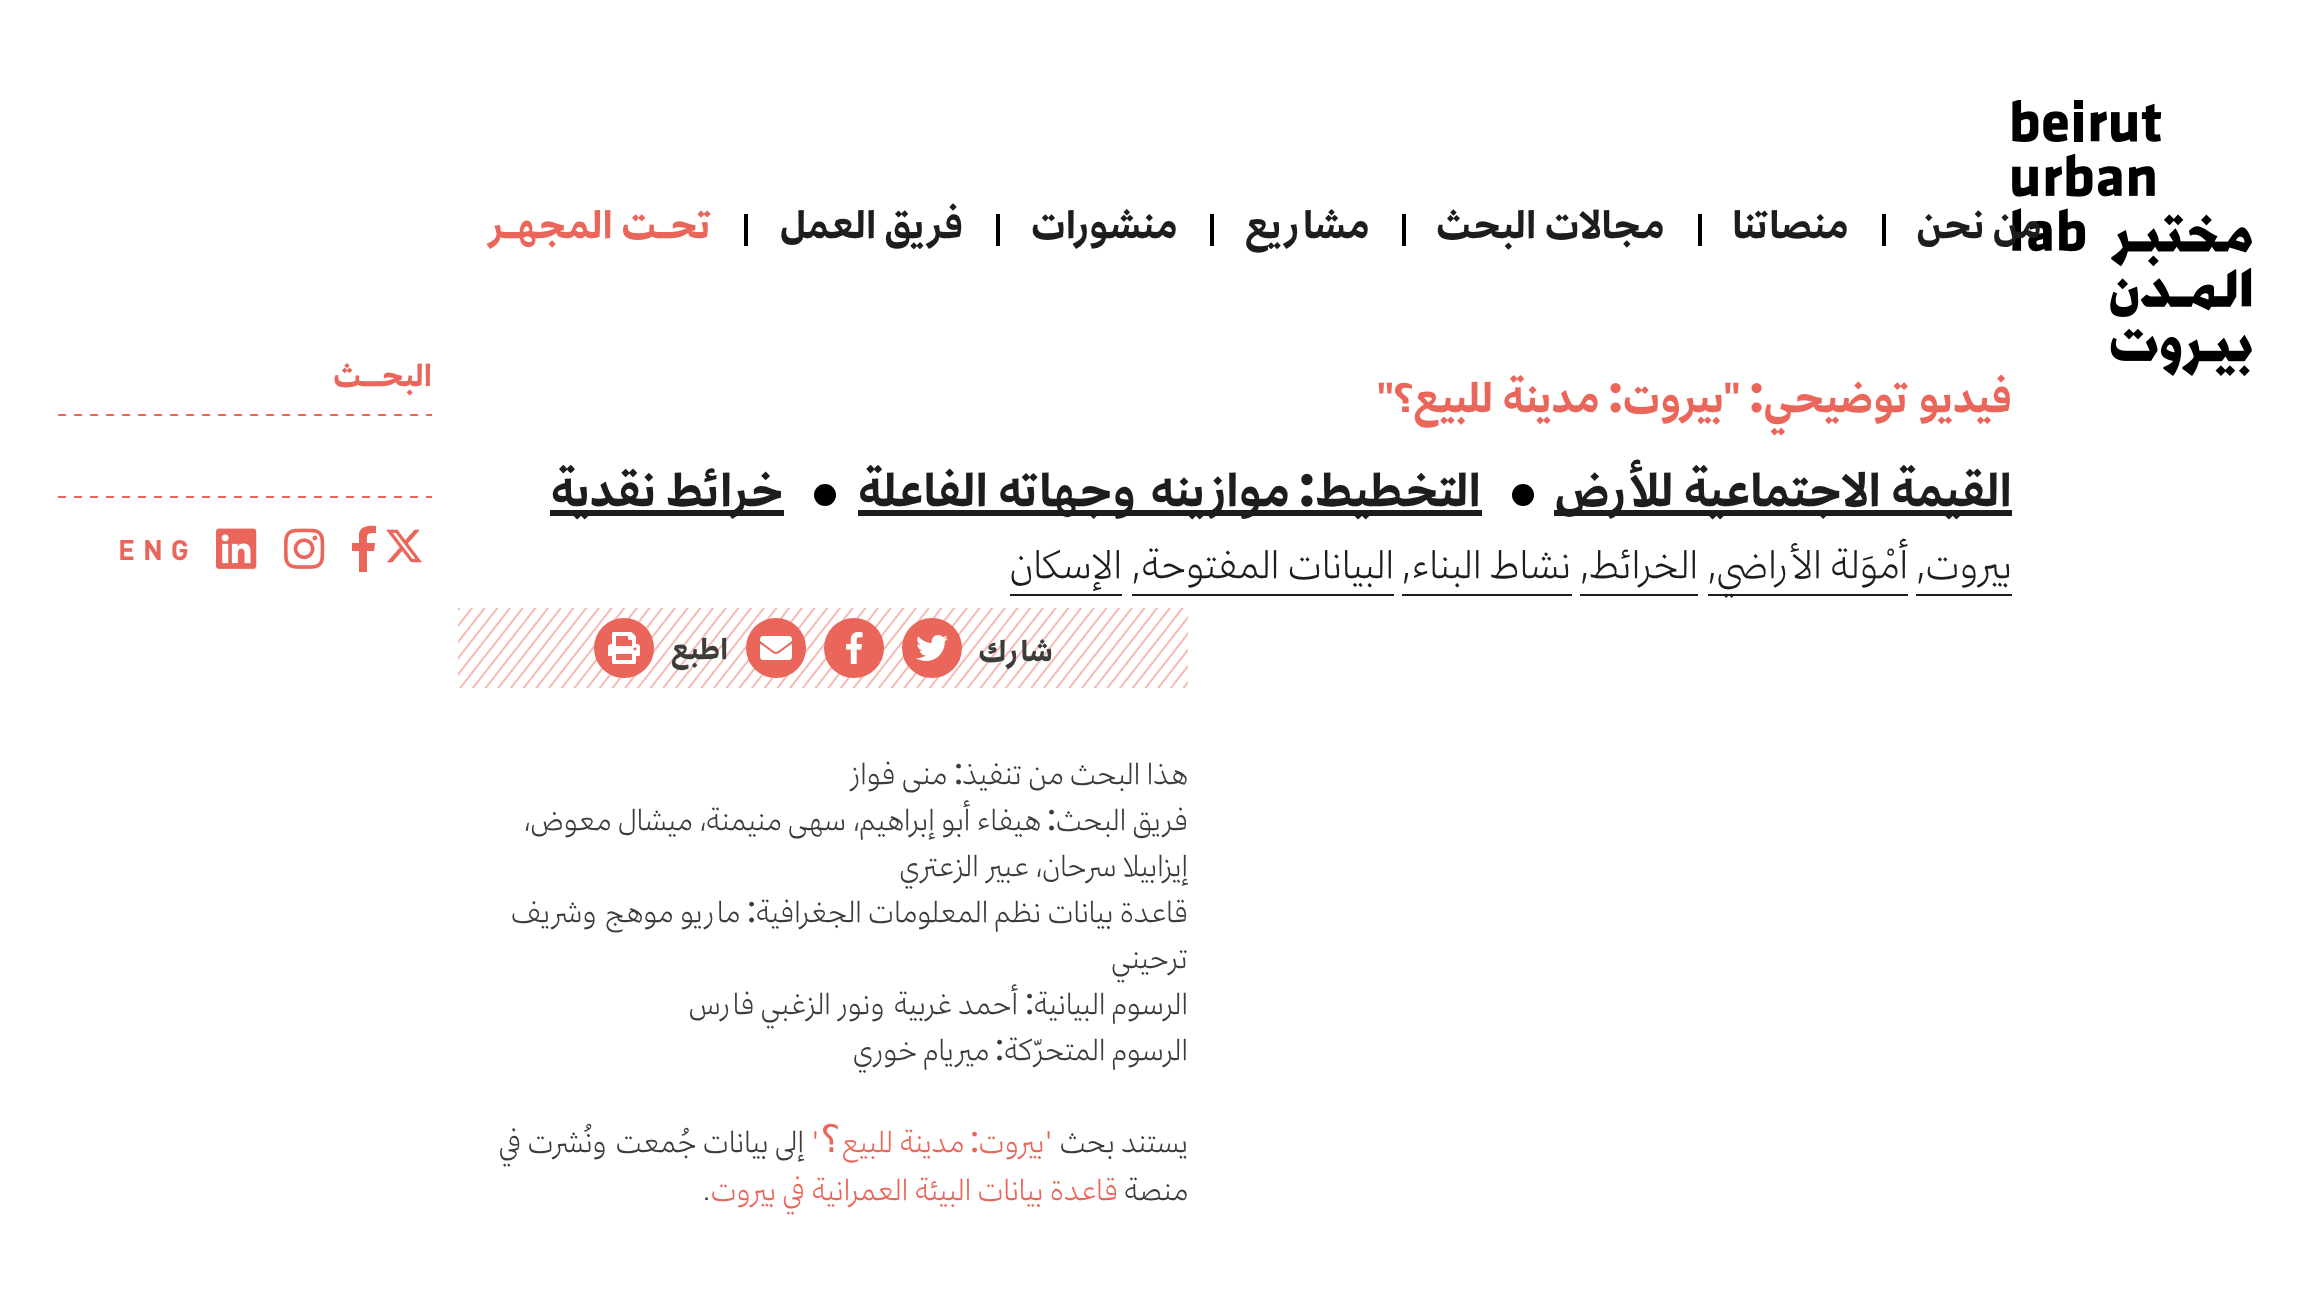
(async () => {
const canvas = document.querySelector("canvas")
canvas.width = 2309
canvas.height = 1290
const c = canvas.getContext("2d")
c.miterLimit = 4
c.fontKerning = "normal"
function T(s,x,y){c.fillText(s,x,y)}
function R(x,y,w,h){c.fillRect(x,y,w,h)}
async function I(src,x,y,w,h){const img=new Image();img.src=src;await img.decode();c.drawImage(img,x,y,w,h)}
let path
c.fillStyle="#fff"
R(0,0,2309,1290)
await I("1.png",2012,100,240,276)
c.direction="rtl"
c.font="bold 50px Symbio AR"
c.fillStyle="#1d1d1b"
T("من نحن",2041,238)
c.fillStyle="#000"
R(1882,214,4,32)
c.fillStyle="#1d1d1b"
T("منصاتنا",1848,238)
c.fillStyle="#000"
R(1698,214,4,32)
c.fillStyle="#1d1d1b"
T("مجالات البحث",1664,238)
c.fillStyle="#000"
R(1402,214,4,32)
c.fillStyle="#1d1d1b"
T("مشاريع",1369,238)
c.fillStyle="#000"
R(1210,214,4,32)
c.fillStyle="#1d1d1b"
T("منشورات",1177,238)
c.fillStyle="#000"
R(996,214,4,32)
c.fillStyle="#1d1d1b"
T("فريق العمل",963,238)
c.fillStyle="#000"
R(744,214,4,32)
c.fillStyle="#ea665a"
T("تحـت المجهـر",712,238)
c.font="bold 54px Symbio AR"
T("فيديو توضيحي",2012,412)
c.font="bold 54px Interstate"
T(":",1764,412)
c.font="bold 54px Symbio AR"
T("\"بيروت",1740,412)
c.font="bold 54px Interstate"
T(":",1623,412)
c.font="bold 54px Symbio AR"
T("مدينة للبيع؟\"",1599,412)
c.fillStyle="#1d1d1b"
R(1554,510,458,6)
c.font="bold 60px Symbio AR"
T("القيمة الاجتماعية للأرض",2012,506)
c.fillStyle="#000"
c.beginPath()
c.arc(1523,495,11,0,7)
c.fill()
c.fillStyle="#1d1d1b"
R(858,510,624,6)
T("التخطيط",1481,506)
c.font="bold 60px Interstate"
T(":",1315,506)
c.font="bold 60px Symbio AR"
T("موازينه وجهاته الفاعلة",1289,506)
c.fillStyle="#000"
c.beginPath()
c.arc(825,495,11,0,7)
c.fill()
c.fillStyle="#1d1d1b"
R(550,510,234,6)
T("خرائط نقدية",784,506)
R(1916,594,96,2)
c.font="300 50px Symbio AR"
T("بيروت,",2012,578)
R(1708,594,200,2)
T("أمْوَلة الأراضي,",1908,578)
R(1580,594,118,2)
T("الخرائط,",1698,578)
R(1402,594,170,2)
T("نشاط البناء,",1571,578)
R(1132,594,262,2)
T("البيانات المفتوحة,",1394,578)
R(1010,594,112,2)
T("الإسكان",1122,578)
await I("2.png",458,608,730,80)
c.font="bold 38px Symbio AR"
c.fillStyle="#3c3c3b"
T("شارك",1053,661)
c.fillStyle="#ea665a"
c.beginPath()
c.arc(932,648,29,0,7)
c.fill()
c.strokeStyle="#ea665a"
c.lineWidth=2
c.stroke()
await I("3.png",916,635,32,26)
c.beginPath()
c.arc(854,648,29,0,7)
c.fill()
c.stroke()
await I("4.png",846,632,17,32)
c.beginPath()
c.arc(776,648,29,0,7)
c.fill()
c.stroke()
await I("5.png",760,636,32,24)
c.fillStyle="#3c3c3b"
T("اطبع",728,659)
c.fillStyle="#ea665a"
c.beginPath()
c.arc(624,648,29,0,7)
c.fill()
c.stroke()
await I("6.png",608,632,32,32)
c.font="300 38px Symbio AR"
c.fillStyle="#3c3c3b"
T("هذا البحث من تنفيذ",1188,784)
c.font="300 38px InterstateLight"
T(":",963,784)
c.font="300 38px Symbio AR"
T("منى فواز",947,784)
T("فريق البحث",1188,830)
c.font="300 38px InterstateLight"
T(":",1056,830)
c.font="300 38px Symbio AR"
T("هيفاء أبو إبراهيم، سهى منيمنة، ميشال معوض،",1041,830)
T("إيزابيلا سرحان، عبير الزعتري",1188,876)
T("قاعدة بيانات نظم المعلومات الجغرافية",1188,922)
c.font="300 38px InterstateLight"
T(":",756,922)
c.font="300 38px Symbio AR"
T("ماريو موهج وشريف",740,922)
T("ترحيني",1188,968)
T("الرسوم البيانية",1188,1014)
c.font="300 38px InterstateLight"
T(":",1034,1014)
c.font="300 38px Symbio AR"
T("أحمد غربية ونور الزغبي فارس",1018,1014)
T("الرسوم المتحرّكة",1188,1060)
c.font="300 38px InterstateLight"
T(":",1004,1060)
c.font="300 38px Symbio AR"
T("ميريام خوري",989,1060)
T("يستند بحث",1188,1152)
c.fillStyle="#ea665a"
T("\"بيروت",1053,1152)
c.font="300 38px InterstateLight"
T(":",979,1152)
c.font="300 38px Symbio AR"
T("مدينة للبيع",964,1152)
c.font="38px DejaVu Sans Mono"
T("؟",842,1152)
c.direction="ltr"
c.font="300 38px Symbio AR"
T("\"",811,1152)
c.direction="rtl"
c.fillStyle="#3c3c3b"
T("إلى بيانات جُمعت ونُشرت في",804,1152)
T("منصة",1188,1200)
c.fillStyle="#ea665a"
T("قاعدة بيانات البيئة العمرانية في بيروت",1118,1200)
c.direction="ltr"
c.fillStyle="#3c3c3b"
T(".",703,1200)
c.direction="rtl"
c.font="bold 40px Symbio AR"
c.fillStyle="#ea665a"
T("البحــث",432,386)
await I("7.png",58,414,374,2)
R(58,496,374,2)
await I("8.png",66,496,360,2)
await I("9.png",386,529,36,34)
path = new Path2D("M359 572v-21h-7v-8h7v-9c1-8 10-9 17-8v7c-10 0-9 1-9 10h8l-1 8h-7v21z")
c.fill(path)
await I("10.png",284,528,41,41)
await I("11.png",216,528,41,41)
c.letterSpacing="8px"
c.direction="ltr"
c.font="bold 28px DIN"
T("ENG",118,560)
})()
